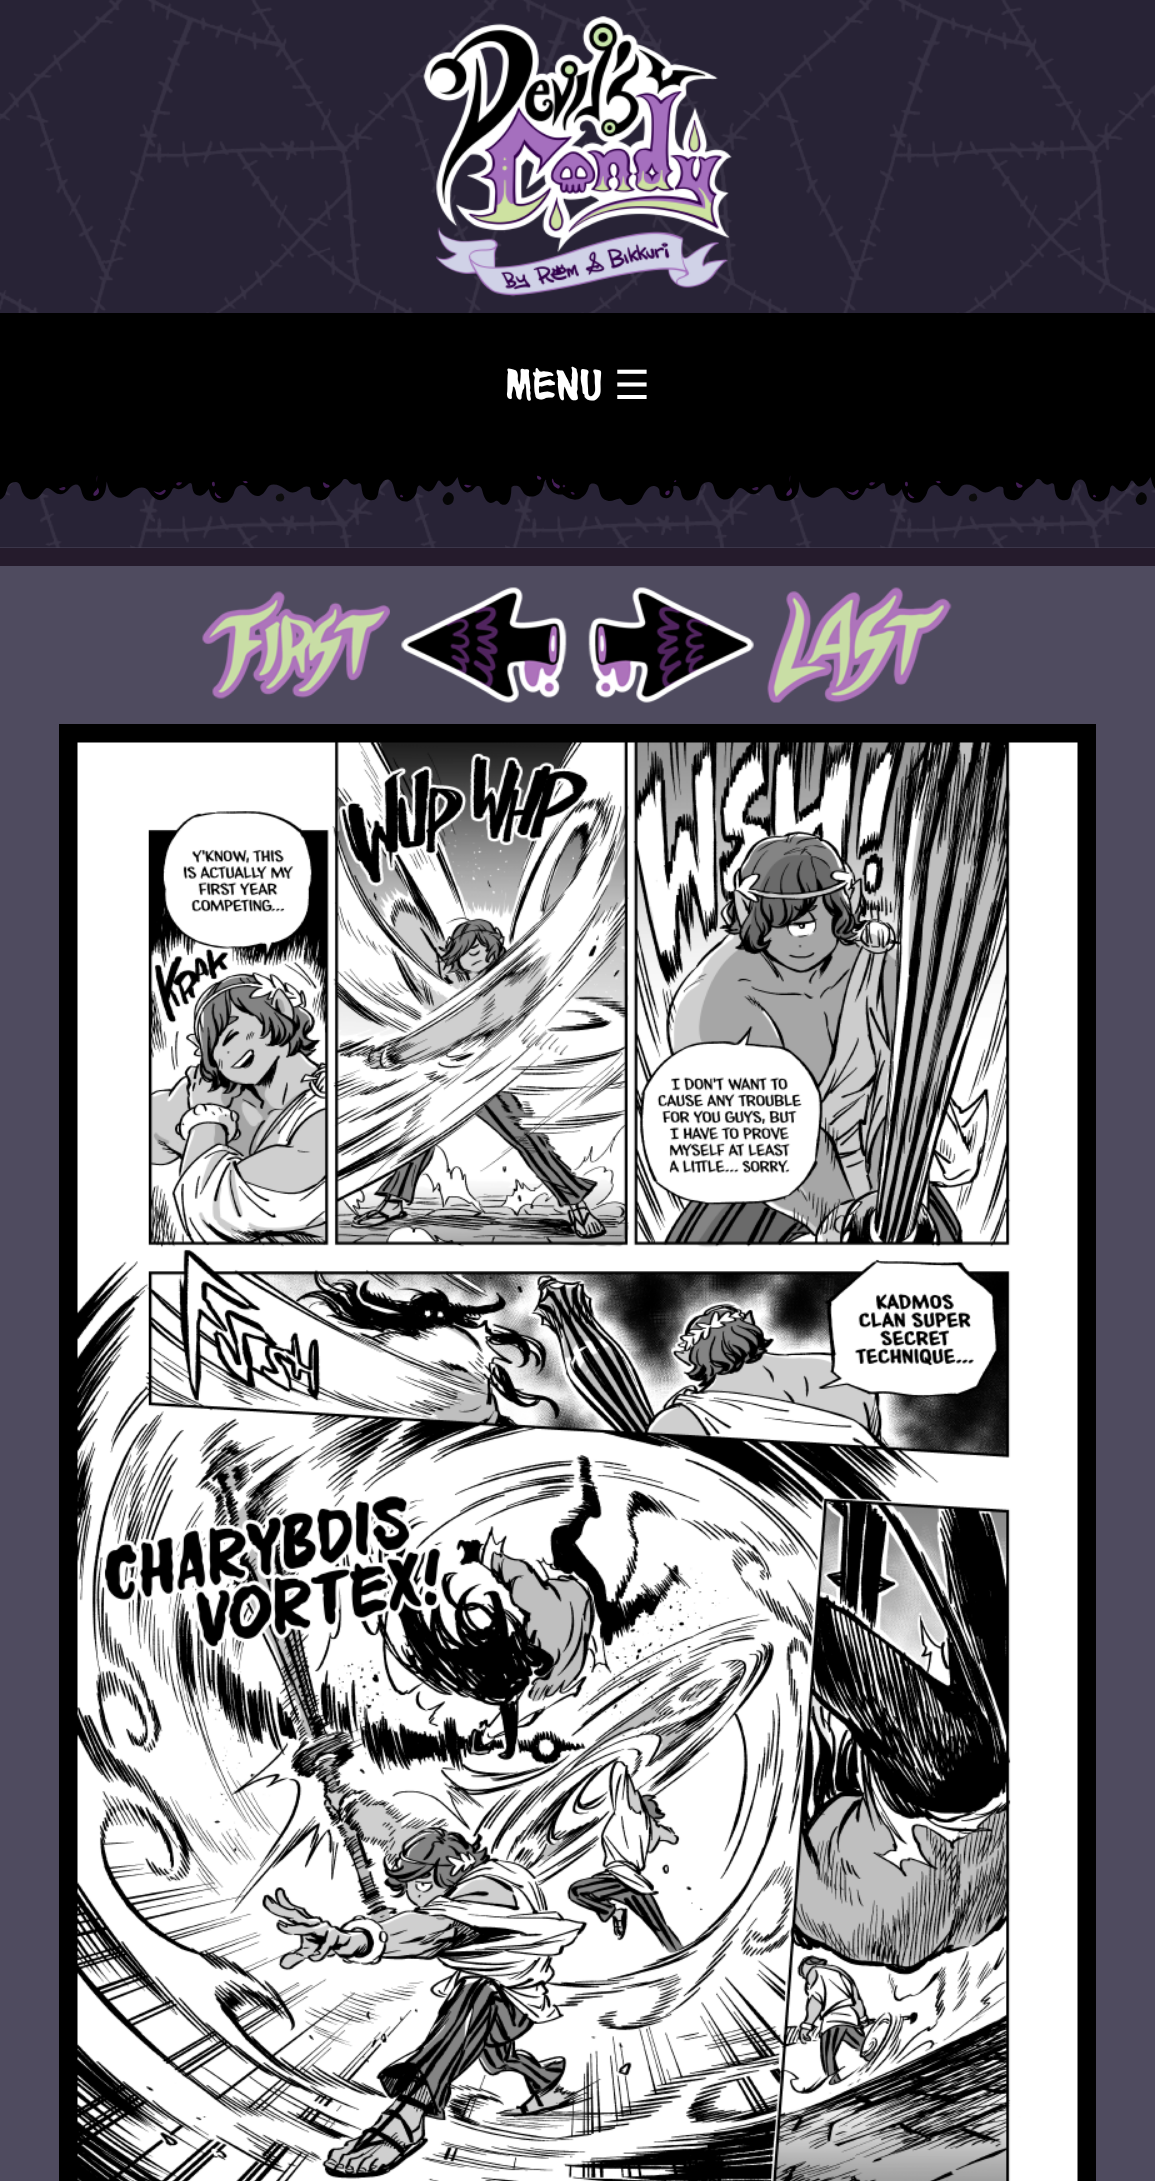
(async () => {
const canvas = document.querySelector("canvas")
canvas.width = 1155
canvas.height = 2181
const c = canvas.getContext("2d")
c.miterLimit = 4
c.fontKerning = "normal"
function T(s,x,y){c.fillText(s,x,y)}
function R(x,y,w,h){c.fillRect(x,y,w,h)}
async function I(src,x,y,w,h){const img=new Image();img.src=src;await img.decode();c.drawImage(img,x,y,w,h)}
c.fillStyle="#4f4b5f"
R(0,0,1155,2181)
await I("1.png",0,0,1155,548)
await I("2.png",423,16,309,281)
c.fillStyle="#000"
R(0,313,1155,147)
c.font="40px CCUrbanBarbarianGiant"
c.fillStyle="#fff"
T("Menu",505,399)
c.font="40px DejaVu Sans"
T("☰",614,399)
await I("3.png",0,460,1155,45)
c.fillStyle="#251b2c"
R(0,548,1155,18)
await I("4.png",202,591,188,108)
await I("5.png",401,587,166,116)
await I("6.png",588,587,166,116)
await I("7.png",767,587,185,116)
c.strokeStyle="#000"
c.lineWidth=19
c.strokeRect(68.5,733.5,1018,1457)
await I("8.png",77,742,1001,1439)
})()
